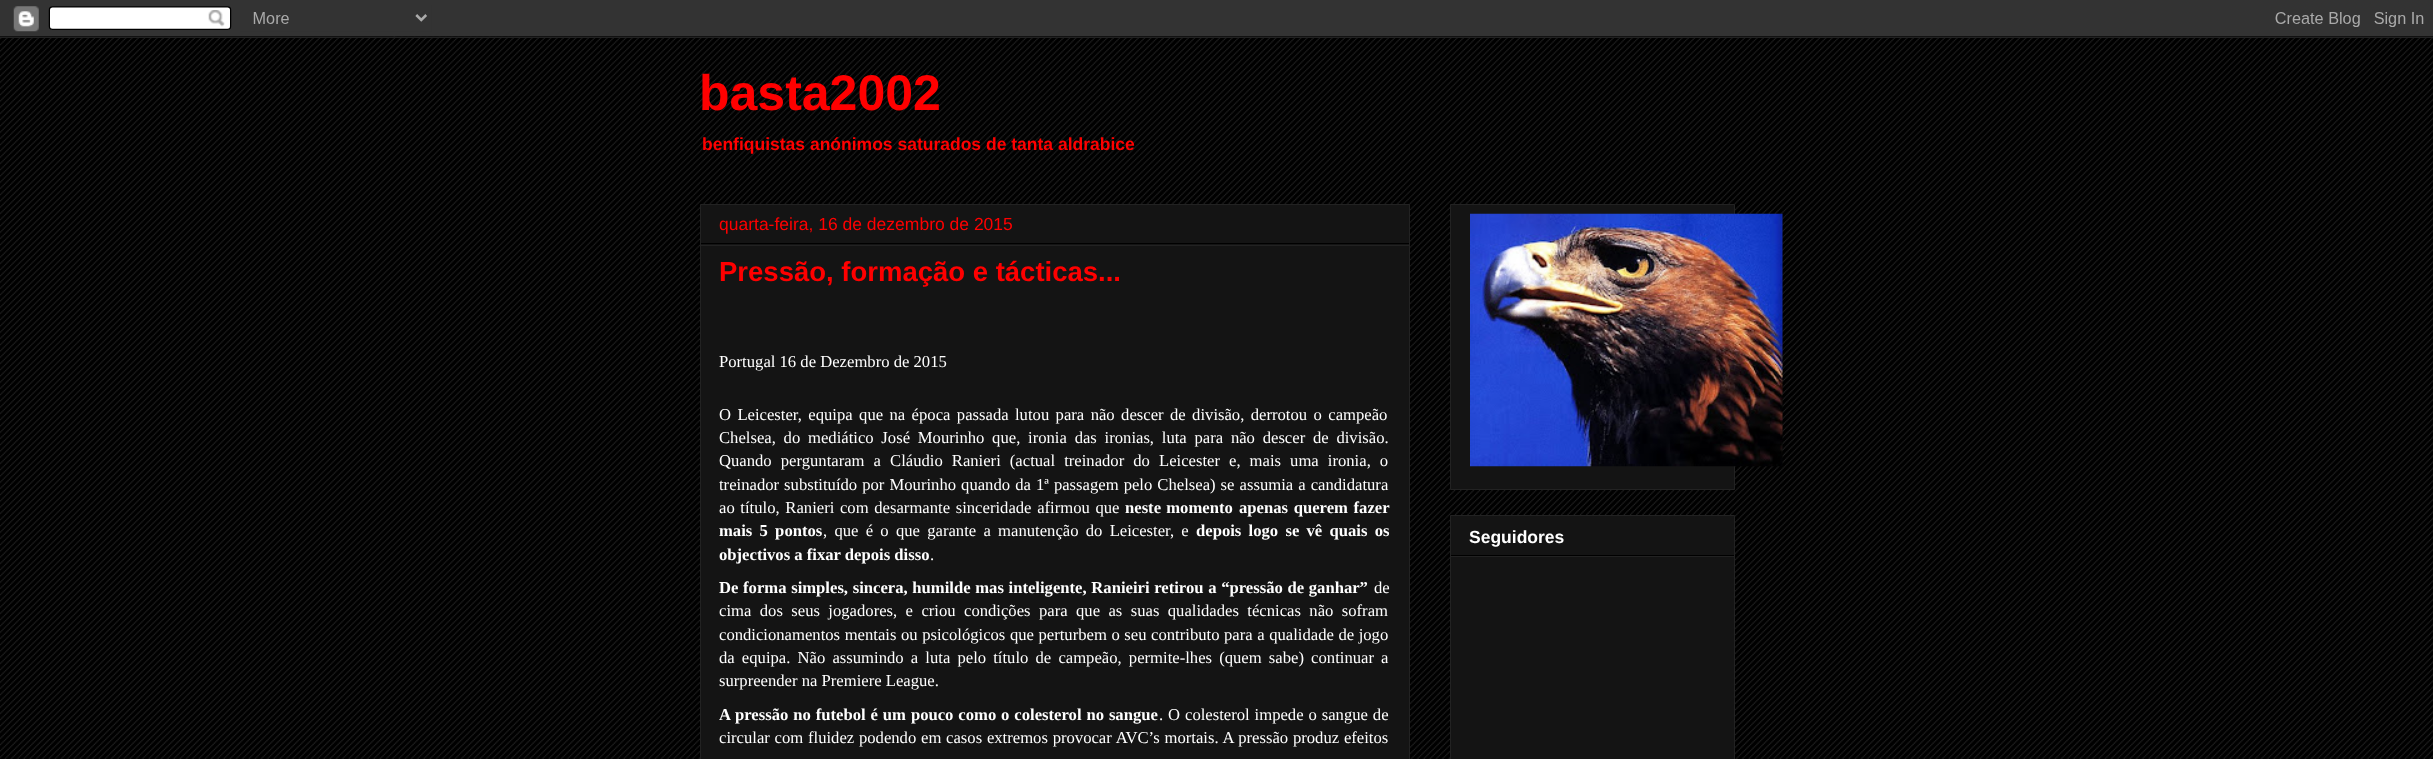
(async () => {
const canvas = document.querySelector("canvas")
canvas.width = 2433
canvas.height = 759
const c = canvas.getContext("2d")
c.miterLimit = 4
c.fontKerning = "normal"
function T(s,x,y){c.fillText(s,x,y)}
function R(x,y,w,h){c.fillRect(x,y,w,h)}
async function I(src,x,y,w,h){const img=new Image();img.src=src;await img.decode();c.drawImage(img,x,y,w,h)}
c.fillStyle="#000"
R(0,0,2433,759)
await I("1.png",0,36,2433,723)
await I("2.png",0,0,2433,38)
c.font="bold 50px Liberation Sans"
c.fillStyle="#f00"
T("basta2002",699,110)
c.font="bold 17.5px Liberation Sans"
T("benfiquistas anónimos saturados de tanta aldrabice",702,150)
c.fillStyle="#141414"
c.beginPath()
c.rect(700.5,204.5,709,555)
c.fill()
c.strokeStyle="#222"
c.stroke()
c.fillStyle="#000"
R(701,243,708,1)
c.font="17.5px Liberation Sans"
c.fillStyle="#f00"
T("quarta-feira, 16 de dezembro de 2015",719,230)
c.fillStyle="#222"
R(701,245,708,1)
c.font="bold 27.5px Liberation Sans"
c.fillStyle="#f00"
T("Pressão, formação e tácticas...",719,281)
c.font="16.65px Liberation Serif"
c.fillStyle="#fff"
T("Portugal 16 de Dezembro de 2015",719,367)
c.wordSpacing="2.25px"
T("O Leicester, equipa que na época passada lutou para não descer de divisão, derrotou o campeão",719,420)
c.wordSpacing="3.6px"
T("Chelsea, do mediático José Mourinho que, ironia das ironias, luta para não descer de divisão.",719,443)
c.wordSpacing="4.9px"
T("Quando perguntaram a Cláudio Ranieri (actual treinador do Leicester e, mais uma ironia, o",719,466)
c.wordSpacing="0.9px"
T("treinador substituído por Mourinho quando da 1ª passagem pelo Chelsea) se assumia a candidatura",719,490)
c.wordSpacing="1.5px"
T("ao título, Ranieri com desarmante sinceridade afirmou que",719,513)
c.wordSpacing="1px"
c.font="bold 16.65px Liberation Serif"
T("neste momento",1125,513)
c.wordSpacing="1.5px"
T("apenas querem fazer",1239,513)
c.wordSpacing="3.1px"
T("mais 5 pontos",719,536)
c.font="16.65px Liberation Serif"
T(", que é o que garante a manutenção do Leicester, e",823,536)
c.font="bold 16.65px Liberation Serif"
T("depois logo se vê quais os",1196,536)
c.wordSpacing="0px"
T("objectivos a fixar depois disso",719,560)
c.font="16.65px Liberation Serif"
T(".",930,560)
c.wordSpacing="0.5px"
c.font="bold 16.65px Liberation Serif"
T("De forma simples, sincera, humilde mas inteligente, Ranieiri retirou a “pressão de ganhar”",719,593)
c.wordSpacing="0px"
c.font="16.65px Liberation Serif"
T("de",1374,593)
c.wordSpacing="4.25px"
T("cima dos seus jogadores, e criou condições para que as suas qualidades técnicas não sofram",719,616)
c.wordSpacing="0.4px"
T("condicionamentos mentais ou psicológicos que perturbem o seu contributo para a qualidade de jogo",719,640)
c.wordSpacing="3px"
T("da equipa. Não assumindo a luta pelo título de campeão, permite-lhes (quem sabe) continuar a",719,663)
c.wordSpacing="0px"
T("surpreender na Premiere League.",719,686)
c.wordSpacing="0.75px"
c.font="bold 16.65px Liberation Serif"
T("A pressão no futebol é um pouco como o colesterol no sangue",719,720)
c.font="16.65px Liberation Serif"
T(". O colesterol impede o sangue de",1159,720)
c.wordSpacing="0.6px"
T("circular com fluidez podendo em casos extremos provocar AVC’s mortais. A pressão produz efeitos",719,743)
c.fillStyle="#141414"
c.beginPath()
c.rect(1450.5,204.5,284,285)
c.fill()
c.stroke()
await I("3.png",1470,213,313,254)
c.beginPath()
c.rect(1450.5,515.5,284,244)
c.fill()
c.stroke()
c.fillStyle="#000"
R(1451,555,283,1)
c.wordSpacing="0px"
c.font="bold 17.5px Liberation Sans"
c.fillStyle="#fff"
T("Seguidores",1469,543)
c.fillStyle="#222"
R(1451,556,283,1)
})()
